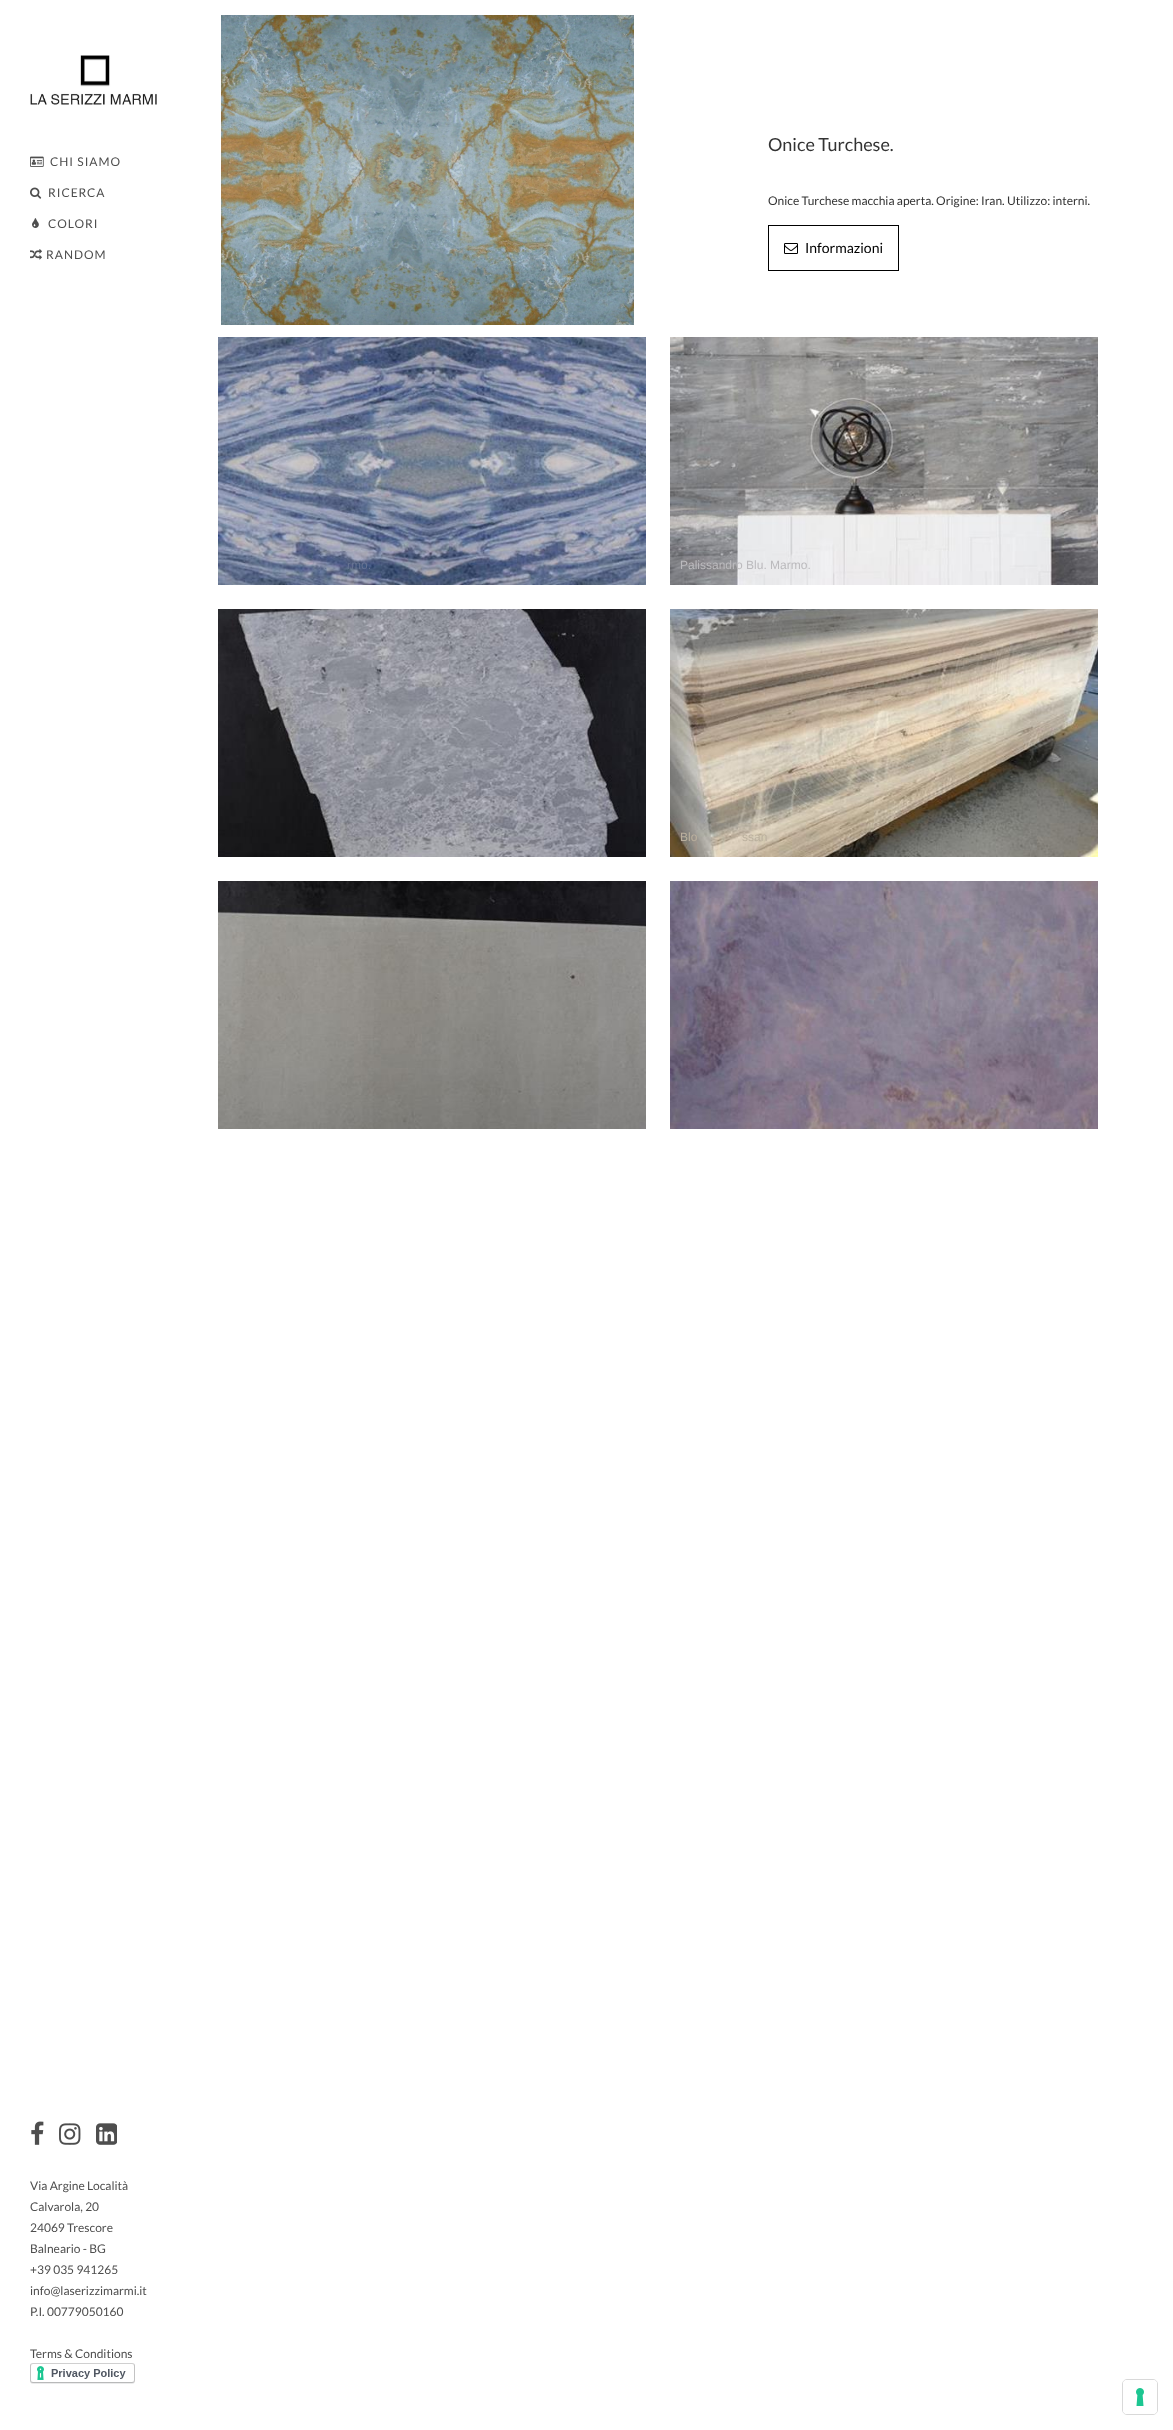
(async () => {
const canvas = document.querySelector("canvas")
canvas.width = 1173
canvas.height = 2430
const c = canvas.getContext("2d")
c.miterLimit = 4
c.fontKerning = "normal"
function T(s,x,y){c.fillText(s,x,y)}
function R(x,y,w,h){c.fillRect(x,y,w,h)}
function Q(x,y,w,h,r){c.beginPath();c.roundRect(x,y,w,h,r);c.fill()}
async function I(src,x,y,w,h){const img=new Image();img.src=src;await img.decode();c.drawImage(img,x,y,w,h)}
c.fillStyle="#fff"
R(0,0,1173,2430)
await I("1.png",30,55,127,50)
await I("2.png",30,156,14,11)
c.letterSpacing="1px"
c.font="12px Lato"
c.fillStyle="#4e4e4e"
T("CHI SIAMO",50,166)
await I("3.png",30,187,12,12)
T("RICERCA",48,197)
await I("4.png",32,218,7,10)
T("COLORI",48,228)
await I("5.png",30,249,12,11)
T("RANDOM",46,259)
await I("6.png",31,2121,13,24)
await I("7.png",59,2123,22,22)
await I("8.png",96,2123,21,22)
c.letterSpacing="0px"
T("Via Argine Località",30,2190)
T("Calvarola, 20",30,2211)
T("24069 Trescore",30,2232)
T("Balneario - BG",30,2253)
T("+39 035 941265",30,2274)
T("info@laserizzimarmi.it",30,2295)
T("P.I. 00779050160",30,2316)
T("Terms & Conditions",30,2358)
await I("9.png",30,2363,105,21)
await I("10.png",221,15,413,310)
c.font="18px Lato"
c.fillStyle="#333"
T("Onice Turchese.",768,151)
c.font="12px Lato"
T("Onice Turchese macchia aperta. Origine: Iran. Utilizzo: interni.",768,205)
c.strokeStyle="#000"
c.strokeRect(768.5,225.5,130,45)
await I("11.png",784,243,14,11)
c.font="14px Lato"
c.fillStyle="#000"
T("Informazioni",805,253)
await I("12.png",218,337,428,248)
c.font="12px Liberation Sans"
c.fillStyle="#677493"
T(".",324,569)
T("rmo.",347,569)
await I("13.png",670,337,428,248)
c.fillStyle="#bbbabd"
T("Palissandro Blu. Marmo.",680,569)
await I("14.png",218,609,428,248)
await I("15.png",670,609,428,248)
c.fillStyle="#bbb09e"
T("Blo",680,841)
T("ssan",742,841)
await I("16.png",218,881,428,248)
await I("17.png",670,881,428,248)
c.beginPath()
c.roundRect(1122.5,2379.5,35,35,4.5)
c.strokeStyle="#d9d9d9"
c.stroke()
c.fillStyle="#fff"
Q(1123,2380,34,34,4)
await I("18.png",1136,2388,8,18)
})()
